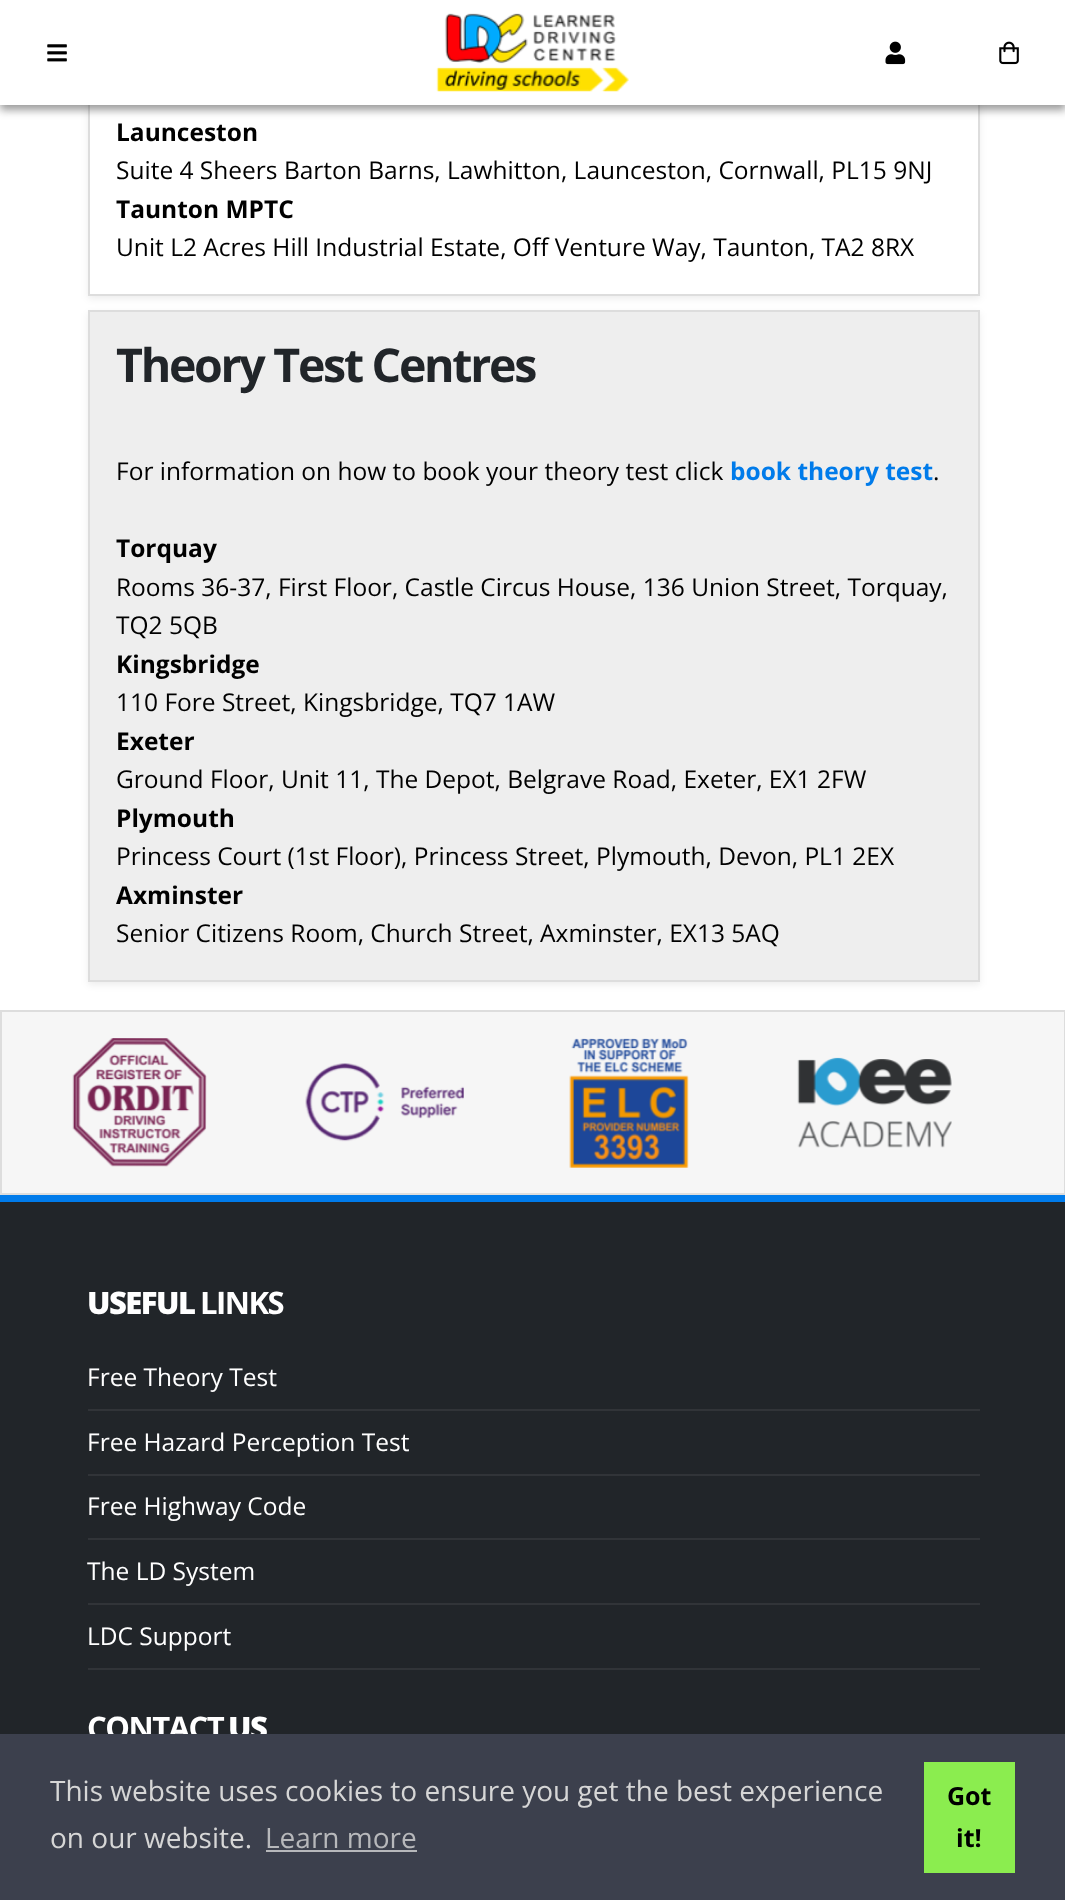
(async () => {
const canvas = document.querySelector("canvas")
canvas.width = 1065
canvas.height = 1900
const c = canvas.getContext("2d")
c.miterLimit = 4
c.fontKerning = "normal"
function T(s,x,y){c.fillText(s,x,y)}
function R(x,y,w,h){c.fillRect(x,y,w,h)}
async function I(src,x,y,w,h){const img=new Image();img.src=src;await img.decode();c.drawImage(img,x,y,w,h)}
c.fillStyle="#fff"
R(0,0,1065,1900)
c.fillStyle="#00000012"
c.filter="blur(3.5px)"
c.beginPath()
c.rect(88,-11,892,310)
c.fill()
c.filter="none"
c.fillStyle="#fff"
R(90,105,888,189)
c.strokeStyle="#ddd"
c.lineWidth=2
c.strokeRect(89,-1,890,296)
c.fillStyle="#33333380"
c.filter="blur(4.5px)"
c.beginPath()
c.rect(0,5,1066,105)
c.fill()
c.filter="none"
c.fillStyle="#fff"
R(0,0,1065,105)
await I("1.png",47,44,20,18)
await I("2.png",436,13,193,79)
await I("3.png",885,41,21,24)
await I("4.png",999,41,20,24)
c.font="bold 24.5px Open Sans"
c.fillStyle="#000"
T("Launceston",116,141)
c.font="24.5px Open Sans"
T("Suite 4 Sheers Barton Barns, Lawhitton, Launceston, Cornwall, PL15 9NJ",116,179)
c.font="bold 24.5px Open Sans"
T("Taunton MPTC",116,218)
c.font="24.5px Open Sans"
T("Unit L2 Acres Hill Industrial Estate, Off Venture Way, Taunton, TA2 8RX",116,256)
c.fillStyle="#00000012"
c.filter="blur(3.5px)"
c.beginPath()
c.rect(88,313,892,672)
c.fill()
c.filter="none"
c.fillStyle="#eee"
c.beginPath()
c.rect(89,311,890,670)
c.fill()
c.stroke()
c.letterSpacing="-2.3px"
c.font="bold 46.5px Open Sans"
c.fillStyle="#212529"
T("Theory Test Centres",116,382)
c.letterSpacing="0px"
c.font="24.5px Open Sans"
c.fillStyle="#000"
T("For information on how to book your theory test click",116,480)
c.font="bold 24.5px Open Sans"
c.fillStyle="#007bea"
T("book theory test",730,480)
c.font="24.5px Open Sans"
c.fillStyle="#000"
T(".",933,480)
c.font="bold 24.5px Open Sans"
T("Torquay",116,557)
c.font="24.5px Open Sans"
T("Rooms 36-37, First Floor, Castle Circus House, 136 Union Street, Torquay,",116,596)
T("TQ2 5QB",116,634)
c.font="bold 24.5px Open Sans"
T("Kingsbridge",116,673)
c.font="24.5px Open Sans"
T("110 Fore Street, Kingsbridge, TQ7 1AW",116,711)
c.font="bold 24.5px Open Sans"
T("Exeter",116,750)
c.font="24.5px Open Sans"
T("Ground Floor, Unit 11, The Depot, Belgrave Road, Exeter, EX1 2FW",116,788)
c.font="bold 24.5px Open Sans"
T("Plymouth",116,827)
c.font="24.5px Open Sans"
T("Princess Court (1st Floor), Princess Street, Plymouth, Devon, PL1 2EX",116,865)
c.font="bold 24.5px Open Sans"
T("Axminster",116,904)
c.font="24.5px Open Sans"
T("Senior Citizens Room, Church Street, Axminster, EX13 5AQ",116,942)
c.fillStyle="#f6f6f6"
c.beginPath()
c.rect(1,1011,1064,183)
c.fill()
c.stroke()
await I("5.png",72,1038,135,129)
await I("6.png",305,1063,159,79)
await I("7.png",569,1038,120,130)
await I("8.png",797,1057,155,91)
c.fillStyle="#212529"
R(0,1202,1065,532)
c.fillStyle="#007bea"
R(0,1195,1065,7)
c.letterSpacing="-1.5px"
c.font="800 31px Open Sans"
c.fillStyle="#fff"
T("USEFUL",87,1314)
c.font="bold 31px Open Sans"
T("LINKS",200,1314)
c.fillStyle="#313438"
R(88,1409,892,2)
c.letterSpacing="0px"
c.font="24.5px Open Sans"
c.fillStyle="#fff"
T("Free Theory Test",87,1386)
c.fillStyle="#313438"
R(88,1474,892,2)
c.fillStyle="#fff"
T("Free Hazard Perception Test",87,1451)
c.fillStyle="#313438"
R(88,1538,892,2)
c.fillStyle="#fff"
T("Free Highway Code",87,1515)
c.fillStyle="#313438"
R(88,1603,892,2)
c.fillStyle="#fff"
T("The LD System",87,1580)
c.fillStyle="#313438"
R(88,1668,892,2)
c.fillStyle="#fff"
T("LDC Support",87,1645)
c.letterSpacing="-1.5px"
c.font="bold 31px Open Sans"
T("CONTACT",87,1739)
c.font="800 31px Open Sans"
T("US",228,1739)
c.fillStyle="#3c404d"
R(0,1734,1065,166)
c.letterSpacing="0px"
c.font="28px Open Sans"
c.fillStyle="#d6d6d6"
T("This website uses cookies to ensure you get the best experience",50,1801)
T("on our website.",50,1848)
c.fillStyle="#b7b8bb"
T("Learn more",265,1848)
R(266,1850,151,2)
c.fillStyle="#8bed4f"
R(924,1762,91,111)
c.font="bold 25px Open Sans"
c.fillStyle="#000"
T("Got",947,1805)
T("it!",956,1847)
})()
